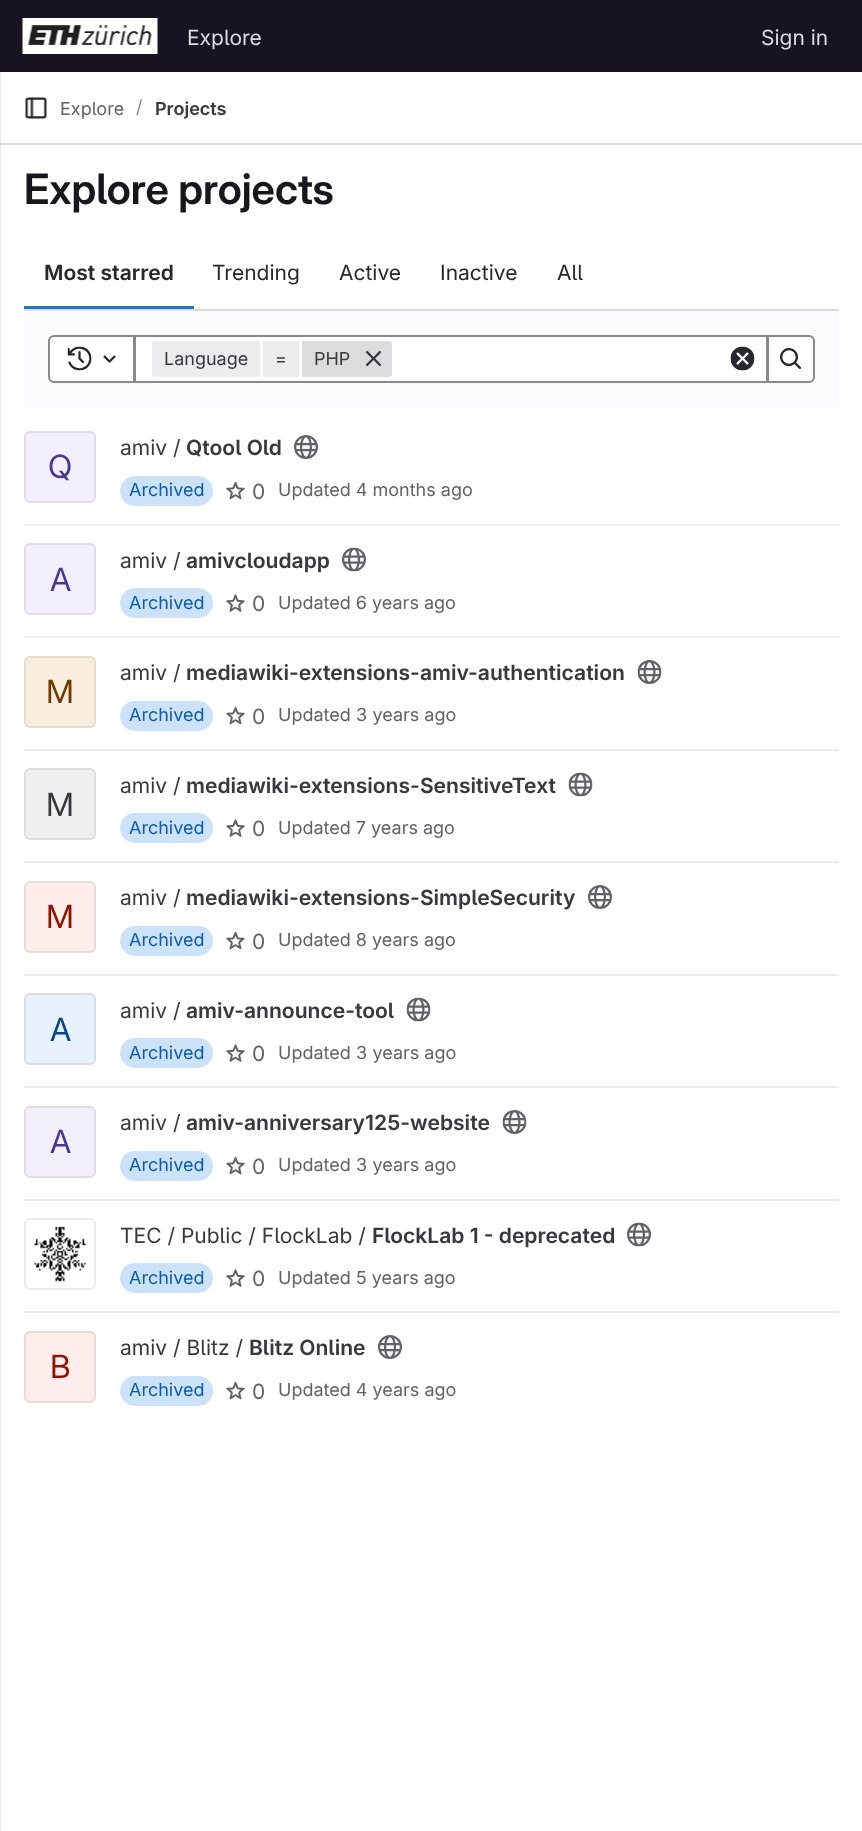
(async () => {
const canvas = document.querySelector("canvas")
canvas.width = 862
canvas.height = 1831
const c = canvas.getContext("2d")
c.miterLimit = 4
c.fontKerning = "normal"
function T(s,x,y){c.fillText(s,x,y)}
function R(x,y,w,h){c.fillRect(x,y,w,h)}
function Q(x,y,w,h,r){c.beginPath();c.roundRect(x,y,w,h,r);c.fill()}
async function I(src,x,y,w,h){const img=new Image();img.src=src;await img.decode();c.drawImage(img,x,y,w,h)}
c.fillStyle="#fff"
R(0,0,862,1831)
c.fillStyle="#ebebeb"
R(0,72,1,1759)
c.fillStyle="#171321"
R(0,0,862,72)
await I("1.png",22,18,136,36)
c.font="21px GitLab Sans"
c.fillStyle="#dcdcde"
T("Explore",187,45)
T("Sign in",761,45)
R(0,143,862,2)
c.fillStyle="#cbcbcd"
R(0,143,1,2)
await I("2.png",25,97,22,22)
c.font="18px GitLab Sans"
c.fillStyle="#626168"
T("Explore",60,115)
c.fillStyle="#89888d"
T("/",136,113)
c.font="600 18px 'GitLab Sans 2'"
c.fillStyle="#3a383f"
T("Projects",155,115)
c.font="600 42px GitLab Sans"
c.fillStyle="#18171d"
T("Explore projects",24,204)
c.font="600 21px 'GitLab Sans 2'"
c.fillStyle="#28272d"
T("Most starred",44,280)
c.fillStyle="#1f75cb"
R(24,306,170,3)
c.font="21px GitLab Sans"
c.fillStyle="#28272d"
T("Trending",212,280)
T("Active",339,280)
T("Inactive",440,280)
T("All",557,280)
c.fillStyle="#fbfafd"
R(24,311,815,96)
c.fillStyle="#dcdcde"
R(24,309,815,2)
c.fillStyle="#fff"
c.beginPath()
c.rect(135,336,632,46)
c.fill()
c.strokeStyle="#89888d"
c.lineWidth=2
c.stroke()
c.beginPath()
c.roundRect(49,336,85,46,[5,0,0,5])
c.fill()
c.stroke()
await I("3.png",67,346,25,25)
await I("4.png",103,355,13,8)
c.fillStyle="#ececef"
c.beginPath()
c.roundRect(152,341,108,36,[3,0,0,3])
c.fill()
c.font="18px GitLab Sans"
c.fillStyle="#3a383f"
T("Language",164,365)
c.fillStyle="#ececef"
R(263,341,36,36)
c.fillStyle="#3a383f"
T("=",275,365)
c.fillStyle="#dcdcde"
c.beginPath()
c.roundRect(302,341,90,36,[0,3,3,0])
c.fill()
c.fillStyle="#3a383f"
T("PHP",314,365)
await I("5.png",366,351,15,15)
await I("6.png",730,346,25,25)
c.fillStyle="#fff"
c.beginPath()
c.roundRect(768,336,46,46,[0,5,5,0])
c.fill()
c.stroke()
await I("7.png",780,348,21,21)
c.fillStyle="#ececef"
R(24,524,815,2)
c.fillStyle="#f3effc"
Q(24,431,72,72,6)
c.beginPath()
c.roundRect(25,432,70,70,5)
c.strokeStyle="#05050614"
c.stroke()
c.font="32px 'GitLab Sans 2'"
c.fillStyle="#453894"
T("Q",48,478)
c.font="21px GitLab Sans"
c.fillStyle="#3a383f"
T("amiv /",120,455)
c.font="600 21px 'GitLab Sans 2'"
T("Qtool Old",186,455)
await I("8.png",294,435,24,24)
c.fillStyle="#cbe2f9"
Q(120,476,93,30,15)
c.font="18px GitLab Sans"
c.fillStyle="#0b5cad"
T("Archived",129,496)
await I("9.png",226,481,19,19)
c.font="21px GitLab Sans"
c.fillStyle="#626168"
T("0",252,499)
c.font="18px GitLab Sans"
T("Updated 4 months ago",278,496)
c.fillStyle="#ececef"
R(24,636,815,2)
c.fillStyle="#f3effc"
Q(24,543,72,72,6)
c.beginPath()
c.roundRect(25,544,70,70,5)
c.stroke()
c.font="32px 'GitLab Sans 2'"
c.fillStyle="#453894"
T("A",50,591)
c.font="21px GitLab Sans"
c.fillStyle="#3a383f"
T("amiv /",120,568)
c.font="600 21px 'GitLab Sans 2'"
T("amivcloudapp",186,568)
await I("10.png",342,547,24,25)
c.fillStyle="#cbe2f9"
Q(120,588,93,30,15)
c.font="18px GitLab Sans"
c.fillStyle="#0b5cad"
T("Archived",129,609)
await I("11.png",226,594,19,18)
c.font="21px GitLab Sans"
c.fillStyle="#626168"
T("0",252,611)
c.font="18px GitLab Sans"
T("Updated 6 years ago",278,609)
c.fillStyle="#ececef"
R(24,749,815,2)
c.fillStyle="#faefde"
Q(24,656,72,72,6)
c.beginPath()
c.roundRect(25,657,70,70,5)
c.stroke()
c.font="32px 'GitLab Sans 2'"
c.fillStyle="#703800"
T("M",46,703)
c.font="21px GitLab Sans"
c.fillStyle="#3a383f"
T("amiv /",120,680)
c.font="600 21px 'GitLab Sans 2'"
T("mediawiki-extensions-amiv-authentication",186,680)
await I("12.png",637,660,25,24)
c.fillStyle="#cbe2f9"
Q(120,701,93,30,15)
c.font="18px GitLab Sans"
c.fillStyle="#0b5cad"
T("Archived",129,721)
await I("9.png",226,706,19,19)
c.font="21px GitLab Sans"
c.fillStyle="#626168"
T("0",252,724)
c.font="18px GitLab Sans"
T("Updated 3 years ago",278,721)
c.fillStyle="#ececef"
R(24,861,815,2)
c.fillStyle="#f0f0f1"
Q(24,768,72,72,6)
c.beginPath()
c.roundRect(25,769,70,70,5)
c.stroke()
c.font="32px 'GitLab Sans 2'"
c.fillStyle="#3a383f"
T("M",46,816)
c.font="21px GitLab Sans"
T("amiv /",120,793)
c.font="600 21px 'GitLab Sans 2'"
T("mediawiki-extensions-SensitiveText",186,793)
await I("13.png",568,772,25,25)
c.fillStyle="#cbe2f9"
Q(120,813,93,30,15)
c.font="18px GitLab Sans"
c.fillStyle="#0b5cad"
T("Archived",129,834)
await I("11.png",226,819,19,18)
c.font="21px GitLab Sans"
c.fillStyle="#626168"
T("0",252,836)
c.font="18px GitLab Sans"
T("Updated 7 years ago",278,834)
c.fillStyle="#ececef"
R(24,974,815,2)
c.fillStyle="#feedeb"
Q(24,881,72,72,6)
c.beginPath()
c.roundRect(25,882,70,70,5)
c.stroke()
c.font="32px 'GitLab Sans 2'"
c.fillStyle="#8d1300"
T("M",46,928)
c.font="21px GitLab Sans"
c.fillStyle="#3a383f"
T("amiv /",120,905)
c.font="600 21px 'GitLab Sans 2'"
T("mediawiki-extensions-SimpleSecurity",186,905)
await I("8.png",588,885,24,24)
c.fillStyle="#cbe2f9"
Q(120,926,93,30,15)
c.font="18px GitLab Sans"
c.fillStyle="#0b5cad"
T("Archived",129,946)
await I("9.png",226,931,19,19)
c.font="21px GitLab Sans"
c.fillStyle="#626168"
T("0",252,949)
c.font="18px GitLab Sans"
T("Updated 8 years ago",278,946)
c.fillStyle="#ececef"
R(24,1086,815,2)
c.fillStyle="#e7f2fc"
Q(24,993,72,72,6)
c.beginPath()
c.roundRect(25,994,70,70,5)
c.stroke()
c.font="32px 'GitLab Sans 2'"
c.fillStyle="#064787"
T("A",50,1041)
c.font="21px GitLab Sans"
c.fillStyle="#3a383f"
T("amiv /",120,1018)
c.font="600 21px 'GitLab Sans 2'"
T("amiv-announce-tool",186,1018)
await I("14.png",406,997,25,25)
c.fillStyle="#cbe2f9"
Q(120,1038,93,30,15)
c.font="18px GitLab Sans"
c.fillStyle="#0b5cad"
T("Archived",129,1059)
await I("11.png",226,1044,19,18)
c.font="21px GitLab Sans"
c.fillStyle="#626168"
T("0",252,1061)
c.font="18px GitLab Sans"
T("Updated 3 years ago",278,1059)
c.fillStyle="#ececef"
R(24,1199,815,2)
c.fillStyle="#f3effc"
Q(24,1106,72,72,6)
c.beginPath()
c.roundRect(25,1107,70,70,5)
c.stroke()
c.font="32px 'GitLab Sans 2'"
c.fillStyle="#453894"
T("A",50,1153)
c.font="21px GitLab Sans"
c.fillStyle="#3a383f"
T("amiv /",120,1130)
c.font="600 21px 'GitLab Sans 2'"
T("amiv-anniversary125-website",186,1130)
await I("15.png",502,1110,25,24)
c.fillStyle="#cbe2f9"
Q(120,1151,93,30,15)
c.font="18px GitLab Sans"
c.fillStyle="#0b5cad"
T("Archived",129,1171)
await I("9.png",226,1156,19,19)
c.font="21px GitLab Sans"
c.fillStyle="#626168"
T("0",252,1174)
c.font="18px GitLab Sans"
T("Updated 3 years ago",278,1171)
c.fillStyle="#ececef"
R(24,1311,815,2)
await I("16.png",34,1226,52,56)
c.beginPath()
c.roundRect(25,1219,70,70,5)
c.strokeStyle="#ebebeb"
c.stroke()
c.font="21px GitLab Sans"
c.fillStyle="#3a383f"
T("TEC / Public / FlockLab /",120,1243)
c.font="600 21px 'GitLab Sans 2'"
T("FlockLab 1 - deprecated",372,1243)
await I("17.png",627,1222,24,25)
c.fillStyle="#cbe2f9"
Q(120,1263,93,30,15)
c.font="18px GitLab Sans"
c.fillStyle="#0b5cad"
T("Archived",129,1284)
await I("18.png",226,1269,19,18)
c.font="21px GitLab Sans"
c.fillStyle="#626168"
T("0",252,1286)
c.font="18px GitLab Sans"
T("Updated 5 years ago",278,1284)
c.fillStyle="#feedeb"
Q(24,1331,72,72,6)
c.beginPath()
c.roundRect(25,1332,70,70,5)
c.strokeStyle="#05050614"
c.stroke()
c.font="32px 'GitLab Sans 2'"
c.fillStyle="#8d1300"
T("B",50,1378)
c.font="21px GitLab Sans"
c.fillStyle="#3a383f"
T("amiv / Blitz /",120,1355)
c.font="600 21px 'GitLab Sans 2'"
T("Blitz Online",249,1355)
await I("8.png",378,1335,24,24)
c.fillStyle="#cbe2f9"
Q(120,1376,93,30,15)
c.font="18px GitLab Sans"
c.fillStyle="#0b5cad"
T("Archived",129,1396)
await I("9.png",226,1381,19,19)
c.font="21px GitLab Sans"
c.fillStyle="#626168"
T("0",252,1399)
c.font="18px GitLab Sans"
T("Updated 4 years ago",278,1396)
})()
